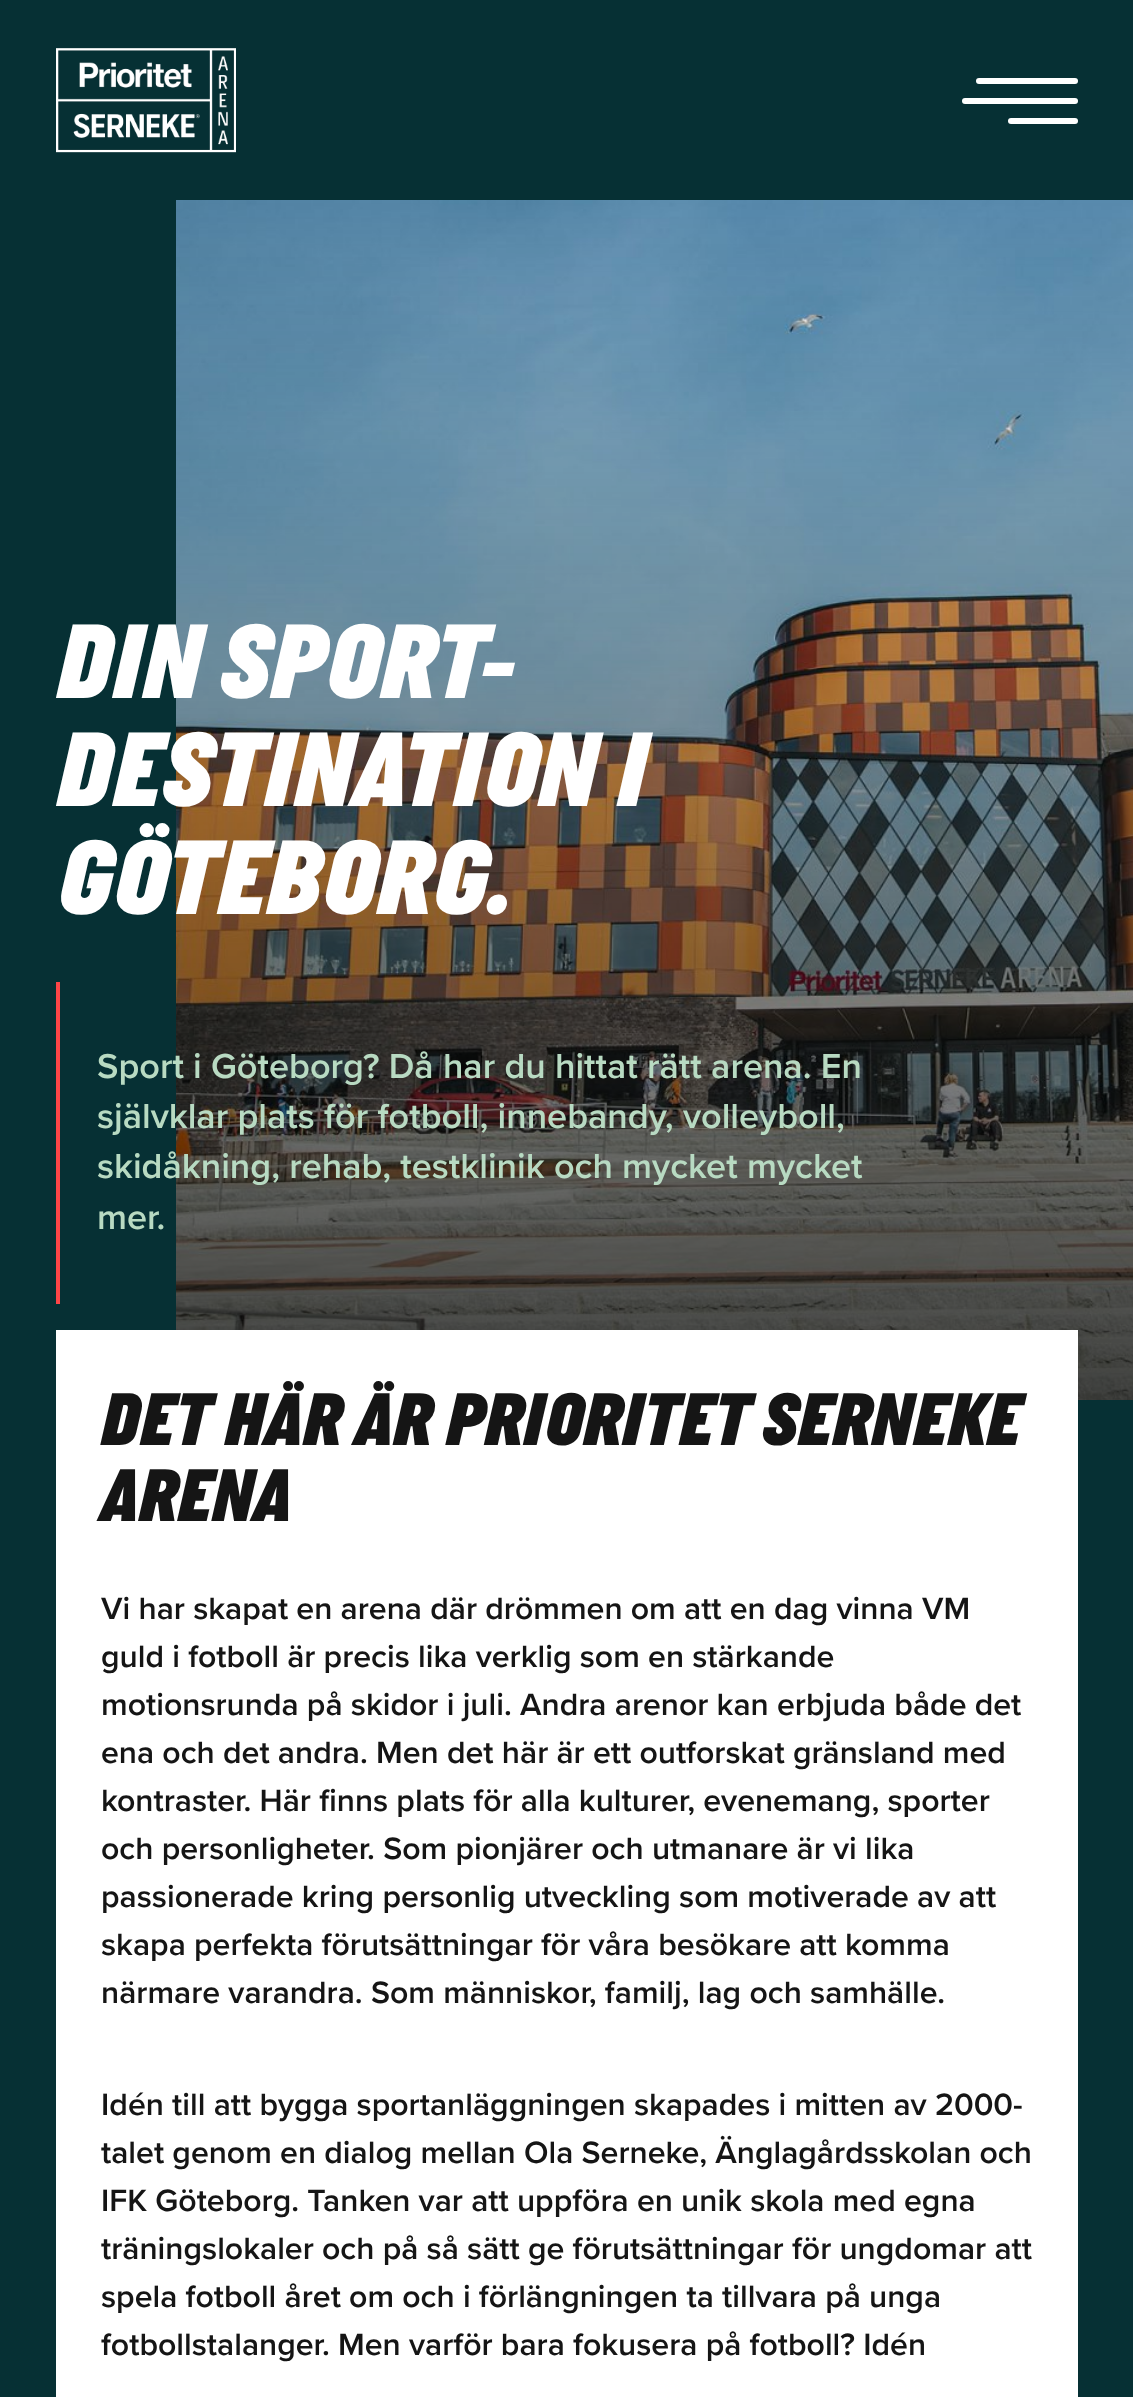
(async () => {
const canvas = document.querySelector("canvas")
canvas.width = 1133
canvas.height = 2397
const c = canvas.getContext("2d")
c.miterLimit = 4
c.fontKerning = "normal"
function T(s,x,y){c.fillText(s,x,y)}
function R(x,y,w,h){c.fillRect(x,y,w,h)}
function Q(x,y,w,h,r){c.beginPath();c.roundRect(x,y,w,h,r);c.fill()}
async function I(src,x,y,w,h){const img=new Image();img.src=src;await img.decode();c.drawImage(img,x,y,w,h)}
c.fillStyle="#063034"
R(0,0,1133,2397)
await I("1.png",56,48,180,105)
c.fillStyle="#fff"
Q(976,78,102,6,3)
Q(962,98,116,6,3)
Q(1008,118,70,6,3)
await I("2.png",176,200,957,1200)
c.font="italic 900 108px 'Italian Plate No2'"
T("DIN SPORT-",57,698)
T("DESTINATION I",57,806)
T("GÖTEBORG.",57,914)
c.fillStyle="#fc4547"
R(56,982,4,322)
c.font="600 36px Proxima Nova"
c.fillStyle="#b8dac2"
T("Sport i Göteborg? Då har du hittat rätt arena. En",97,1078)
T("självklar plats för fotboll, innebandy, volleyboll,",97,1128)
T("skidåkning, rehab, testklinik och mycket mycket",97,1178)
T("mer.",97,1229)
c.fillStyle="#fff"
R(56,1330,1022,1067)
c.font="italic 900 76px 'Italian Plate No2'"
c.fillStyle="#151515"
T("DET HÄR ÄR PRIORITET SERNEKE",101,1445)
T("ARENA",101,1521)
c.font="600 32px Proxima Nova"
T("Vi har skapat en arena där drömmen om att en dag vinna VM",101,1619)
T("guld i fotboll är precis lika verklig som en stärkande",101,1667)
T("motionsrunda på skidor i juli. Andra arenor kan erbjuda både det",101,1715)
T("ena och det andra. Men det här är ett outforskat gränsland med",101,1763)
T("kontraster. Här finns plats för alla kulturer, evenemang, sporter",101,1811)
T("och personligheter. Som pionjärer och utmanare är vi lika",101,1859)
T("passionerade kring personlig utveckling som motiverade av att",101,1907)
T("skapa perfekta förutsättningar för våra besökare att komma",101,1955)
T("närmare varandra. Som människor, familj, lag och samhälle.",101,2003)
T("Idén till att bygga sportanläggningen skapades i mitten av 2000-",101,2115)
T("talet genom en dialog mellan Ola Serneke, Änglagårdsskolan och",101,2163)
T("IFK Göteborg. Tanken var att uppföra en unik skola med egna",101,2211)
T("träningslokaler och på så sätt ge förutsättningar för ungdomar att",101,2259)
T("spela fotboll året om och i förlängningen ta tillvara på unga",101,2307)
T("fotbollstalanger. Men varför bara fokusera på fotboll? Idén",101,2355)
})()
